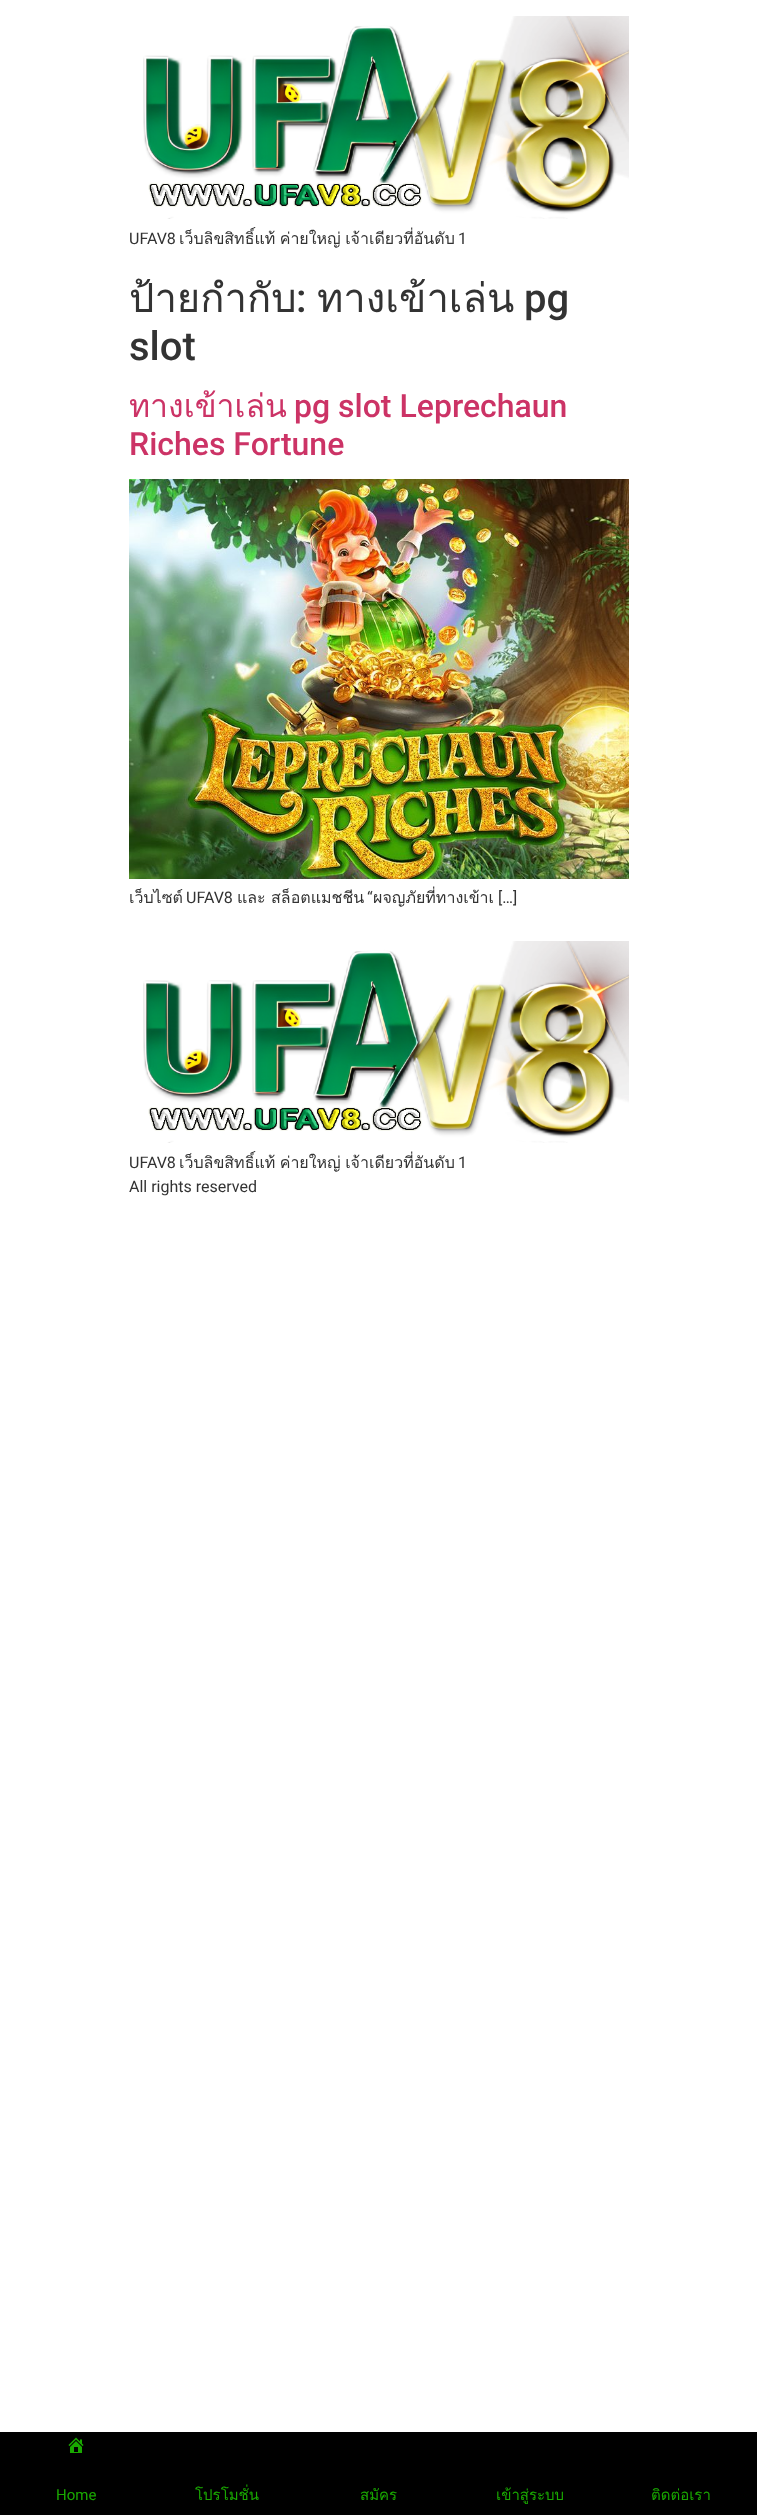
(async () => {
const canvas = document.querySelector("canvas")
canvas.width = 757
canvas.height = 2515
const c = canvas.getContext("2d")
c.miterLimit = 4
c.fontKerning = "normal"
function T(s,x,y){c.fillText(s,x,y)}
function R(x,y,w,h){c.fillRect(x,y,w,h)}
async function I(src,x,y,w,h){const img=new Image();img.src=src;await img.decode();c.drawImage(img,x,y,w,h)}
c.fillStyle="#fff"
R(0,0,757,2515)
await I("1.png",143,16,486,203)
c.font="16px Roboto"
c.fillStyle="#333"
T("UFAV8",129,244)
c.wordSpacing="-1px"
c.font="16px Loma"
T("เว็บลิขสิทธิ์แท้ ค่ายใหญ่ เจ้าเดียวที่อันดับ",179,244)
c.wordSpacing="0px"
c.font="16px Roboto"
T("1",458,244)
c.font="40px Loma"
T("ป้ายกำกับ",129,312)
c.font="500 40px Roboto"
T(":",296,312)
c.font="40px Loma"
T("ทางเข้าเล่น",317,312)
c.font="500 40px Roboto"
T("pg",524,312)
T("slot",129,360)
c.font="32px Loma"
c.fillStyle="#c36"
T("ทางเข้าเล่น",129,417)
c.font="500 32px Roboto"
T("pg slot Leprechaun",294,417)
T("Riches Fortune",129,455)
await I("2.png",129,479,500,400)
c.font="16px Loma"
c.fillStyle="#333"
T("เว็บไซต์",129,903)
c.font="16px Roboto"
T("UFAV8",186,903)
c.font="16px Loma"
T("และ สล็อตแมชชีน",237,903)
c.font="16px Roboto"
T("“",367,903)
c.font="16px Loma"
T("ผจญภัยที่ทางเข้าเ",373,903)
c.font="16px Roboto"
T("[…]",498,903)
await I("3.png",143,941,486,202)
T("UFAV8",129,1168)
c.wordSpacing="-1px"
c.font="16px Loma"
T("เว็บลิขสิทธิ์แท้ ค่ายใหญ่ เจ้าเดียวที่อันดับ",179,1168)
c.wordSpacing="0px"
c.font="16px Roboto"
T("1",458,1168)
T("All rights reserved",129,1192)
c.fillStyle="#000"
R(0,2432,757,83)
await I("4.png",68,2437,16,16)
c.font="15px Roboto"
c.fillStyle="#19a800"
T("Home",56,2500)
c.font="15px Loma"
T("โปรโมชั่น",195,2500)
T("สมัคร",360,2500)
T("เข้าสู่ระบบ",496,2500)
T("ติดต่อเรา",651,2500)
})()
